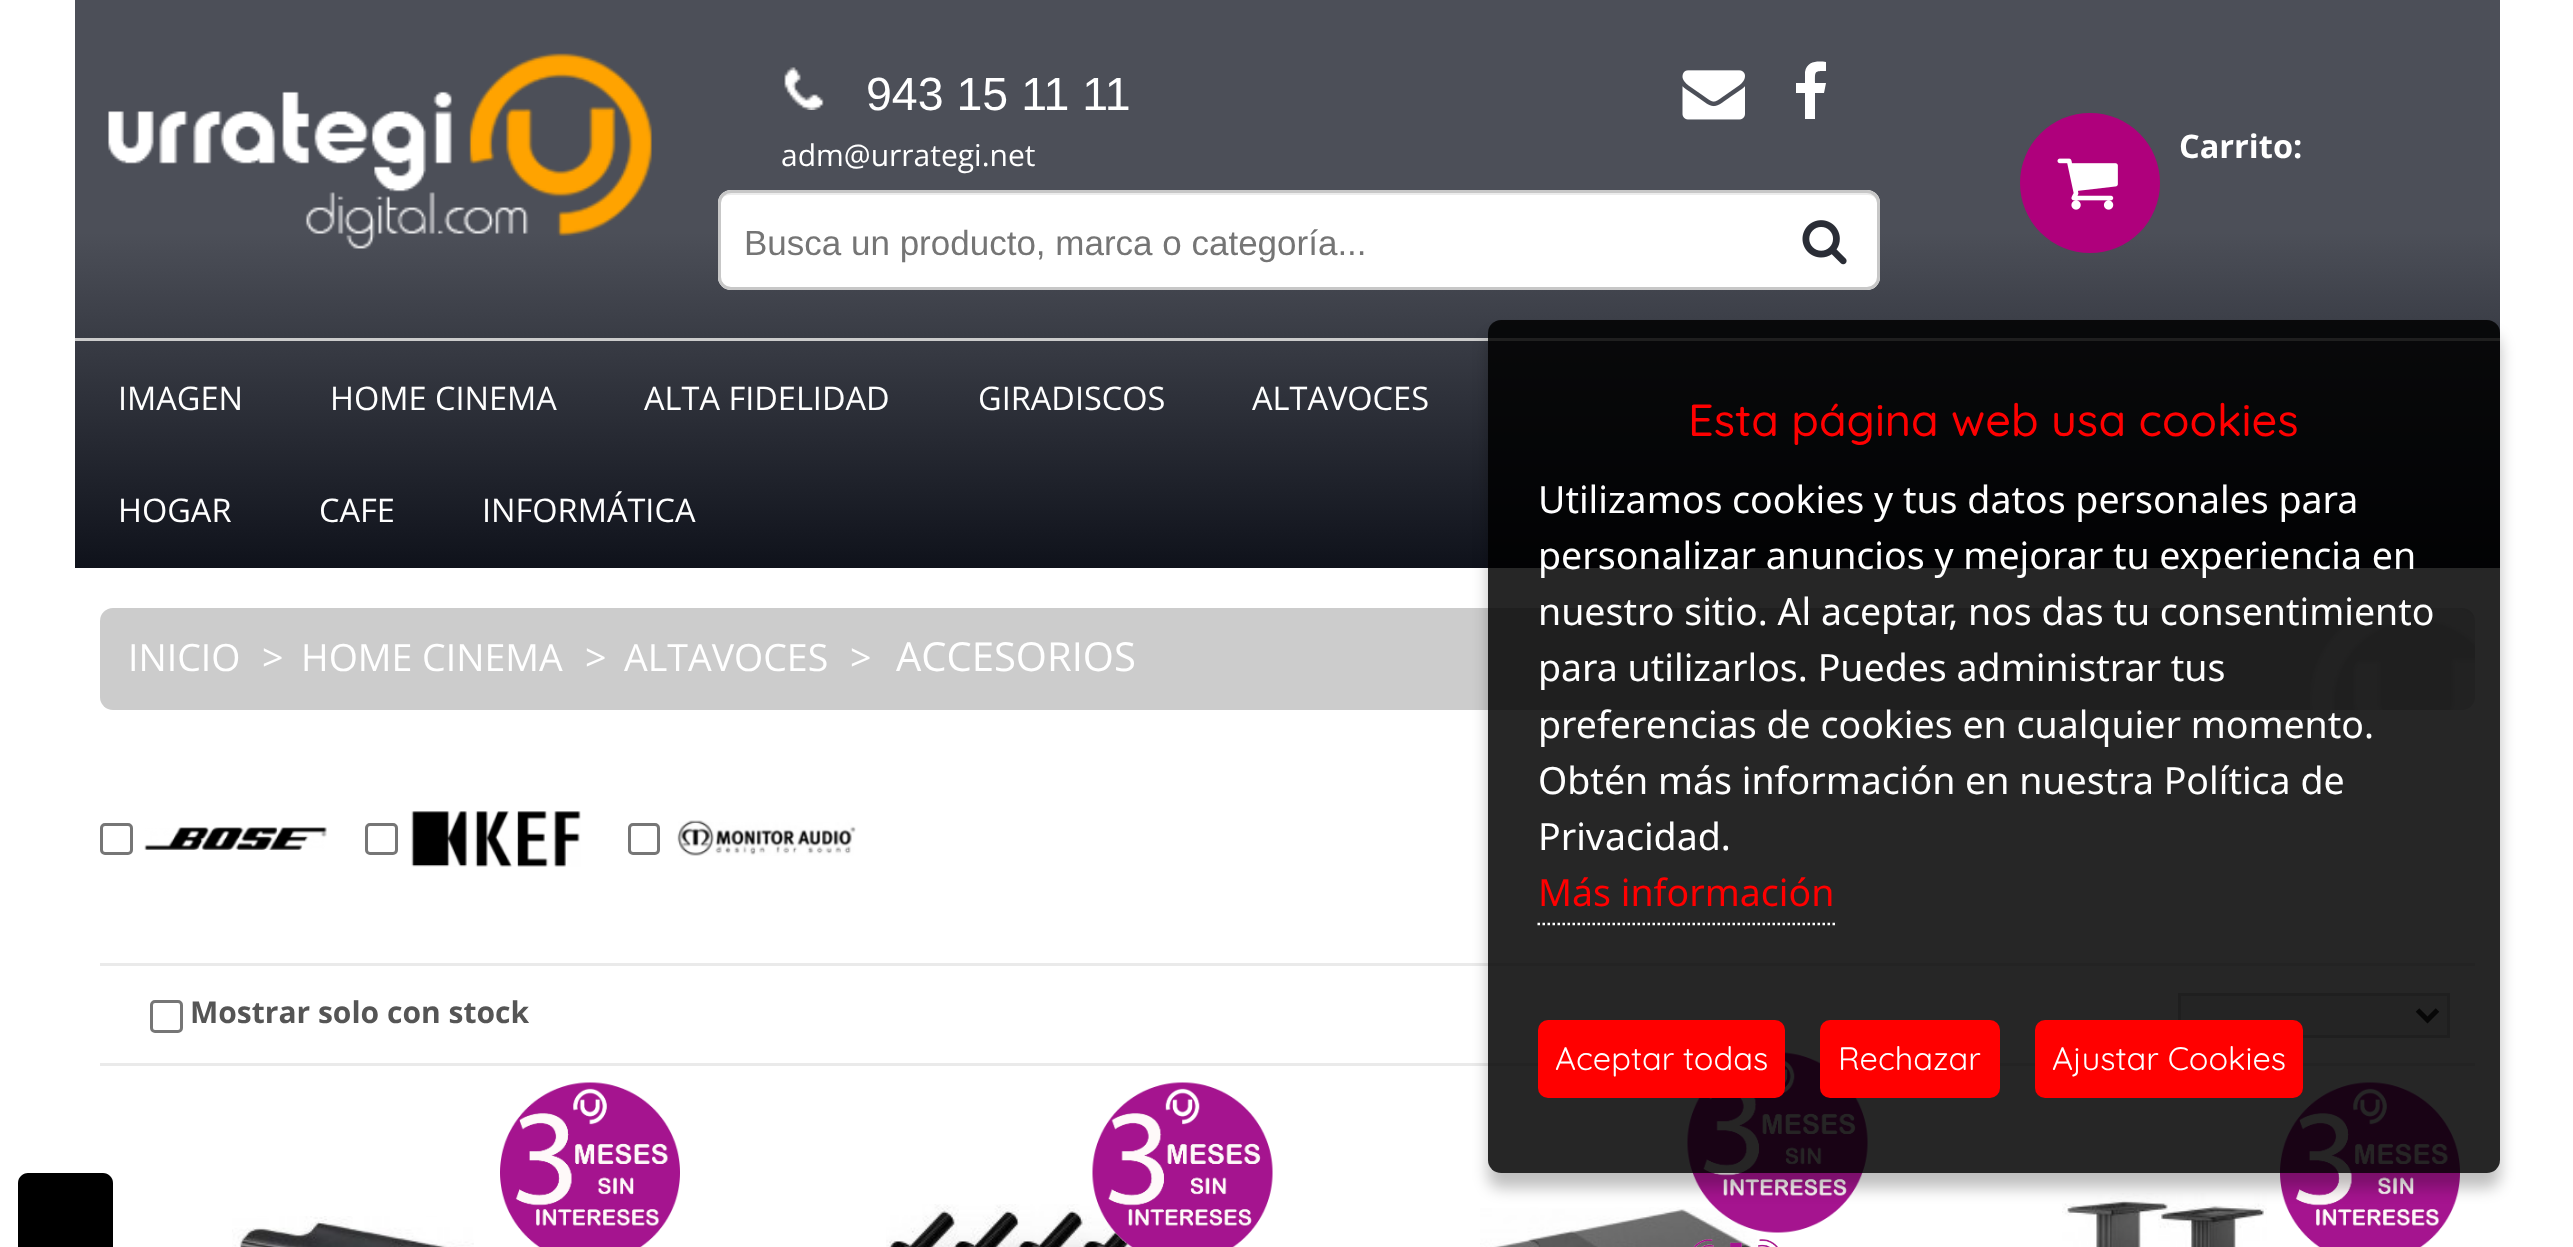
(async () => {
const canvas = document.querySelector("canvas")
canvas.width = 2573
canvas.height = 1247
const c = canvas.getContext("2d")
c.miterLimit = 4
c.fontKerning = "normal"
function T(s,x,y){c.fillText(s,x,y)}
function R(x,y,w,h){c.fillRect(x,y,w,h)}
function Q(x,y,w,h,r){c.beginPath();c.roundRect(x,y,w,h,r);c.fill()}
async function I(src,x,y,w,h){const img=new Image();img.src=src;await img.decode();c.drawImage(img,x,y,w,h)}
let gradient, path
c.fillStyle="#fff"
R(0,0,2573,1247)
gradient = c.createLinearGradient(1288,0,1288,568)
gradient.addColorStop(.41,"#4c4f58")
gradient.addColorStop(1,"#0f121b")
c.fillStyle = gradient
R(75,0,2425,568)
await I("1.png",108,53,544,196)
await I("2.png",783,67,42,43)
c.font="46.5px Liberation Sans"
c.fillStyle="#fff"
T("943 15 11 11",866,110)
c.font="30px Open Sans"
T("adm@urrategi.net",781,166)
await I("3.png",1682,70,63,50)
path = new Path2D("M1826 62v9c-12 0-11 0-11 12h11l-2 10h-9v26h-10v-26h-9v-10h9v-11c2-11 12-11 21-10z")
c.fill(path)
Q(718,190,1162,100,13)
c.fillStyle="#ececec"
path = new Path2D("M730 195h1138c5 0 10 4 10 10v-2c0-6-4-10-10-10h-1138c-6 0-10 4-10 10v2c0-6 4-10 10-10z")
c.fill(path)
c.beginPath()
c.roundRect(719.5,191.5,1159,97,11.5)
c.strokeStyle="#c7c7c7"
c.lineWidth=3
c.stroke()
c.font="35px Liberation Sans"
c.fillStyle="#757575"
T("Busca un producto, marca o categoría...",744,255)
await I("4.png",1802,220,45,45)
c.fillStyle="#af007c"
c.beginPath()
c.arc(2090,183,70,0,7)
c.fill()
await I("5.png",2057,158,61,52)
c.font="bold 32.5px Open Sans"
c.fillStyle="#fff"
T("Carrito:",2179,158)
c.fillStyle="#ccc"
R(75,338,2425,3)
c.font="32.5px Open Sans"
c.fillStyle="#fff"
T("IMAGEN",118,410)
T("HOME CINEMA",330,410)
T("ALTA FIDELIDAD",644,410)
T("GIRADISCOS",978,410)
T("ALTAVOCES",1252,410)
T("HOGAR",118,522)
T("CAFE",319,522)
T("INFORMÁTICA",482,522)
c.fillStyle="#ccc"
Q(100,608,2375,102,13)
c.font="37.5px Open Sans"
c.fillStyle="#fff"
T("INICIO",128,671)
T(">",262,671)
T("HOME CINEMA",301,671)
T(">",585,671)
T("ALTAVOCES",624,671)
T(">",850,671)
c.font="40px Open Sans"
T("ACCESORIOS",896,671)
await I("6.png",2309,608,166,102)
c.beginPath()
c.roundRect(101.5,824.5,30,29,3.5)
c.strokeStyle="#767676"
c.stroke()
await I("7.png",144,827,183,23)
c.beginPath()
c.roundRect(366.5,824.5,30,29,3.5)
c.stroke()
await I("8.png",411,811,170,56)
c.beginPath()
c.roundRect(629.5,824.5,29,29,3.5)
c.stroke()
await I("9.png",677,820,179,36)
c.fillStyle="#eaeaea"
R(100,963,2375,3)
R(100,1063,2375,3)
c.beginPath()
c.roundRect(151.5,1001.5,30,30,3.5)
c.stroke()
c.font="bold 30px Open Sans"
c.fillStyle="#555"
T("Mostrar solo con stock",190,1023)
c.fillStyle="#efefef"
c.beginPath()
c.rect(2179.5,994.5,269,42)
c.fill()
c.strokeStyle="#cececd"
c.stroke()
path = new Path2D("M2417.5 1010l10 10l10-10")
c.strokeStyle="#333"
c.lineWidth=5
c.stroke(path)
await I("10.png",232,1216,242,31)
await I("11.png",500,1082,180,165)
await I("12.png",886,1204,246,43)
await I("13.png",1092,1082,181,165)
await I("14.png",1480,1207,277,40)
await I("15.png",1687,1052,181,181)
await I("16.png",1693,1239,85,8)
await I("17.png",2062,1193,205,54)
await I("18.png",2280,1082,180,165)
c.save()
path = new Path2D("M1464 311h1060v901h-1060zm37 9h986c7 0 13 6 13 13v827c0 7-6 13-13 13h-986c-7 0-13-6-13-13v-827c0-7 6-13 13-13z")
c.clip(path,"evenodd")
c.fillStyle="#00000040"
c.filter="blur(7.5px)"
c.beginPath()
c.roundRect(1488,335,1012,853,13)
c.fill()
c.filter="none"
c.restore()
c.fillStyle="#000000d9"
Q(1488,320,1012,853,13)
c.font="500 45px Quicksand"
c.fillStyle="#f00"
T("Esta página web usa cookies",1688,436)
c.font="37.5px Noto Sans"
c.fillStyle="#fff"
T("Utilizamos cookies y tus datos personales para",1538,513)
T("personalizar anuncios y mejorar tu experiencia en",1538,569)
T("nuestro sitio. Al aceptar, nos das tu consentimiento",1538,625)
T("para utilizarlos. Puedes administrar tus",1538,681)
T("preferencias de cookies en cualquier momento.",1538,738)
T("Obtén más información en nuestra Política de",1538,794)
T("Privacidad.",1538,850)
c.fillStyle="#f00"
T("Más información",1538,906)
path = new Path2D("M1537.5 924h297.5")
c.strokeStyle="#fff"
c.lineWidth=2.5
c.setLineDash([2.5,2.5])
c.stroke(path)
Q(1538,1020,247,78,10)
c.font="32.5px Quicksand"
c.fillStyle="#fff"
T("Aceptar todas",1555,1070)
c.fillStyle="#f00"
Q(1820,1020,180,78,10)
c.fillStyle="#fff"
T("Rechazar",1838,1070)
c.fillStyle="#f00"
Q(2035,1020,268,78,10)
c.fillStyle="#fff"
T("Ajustar Cookies",2052,1070)
c.fillStyle="#000"
path = new Path2D("M28 1173h75c5.5 0 10 4.5 10 10v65h-95v-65c0-5.5 4.5-10 10-10z")
c.fill(path)
})()
